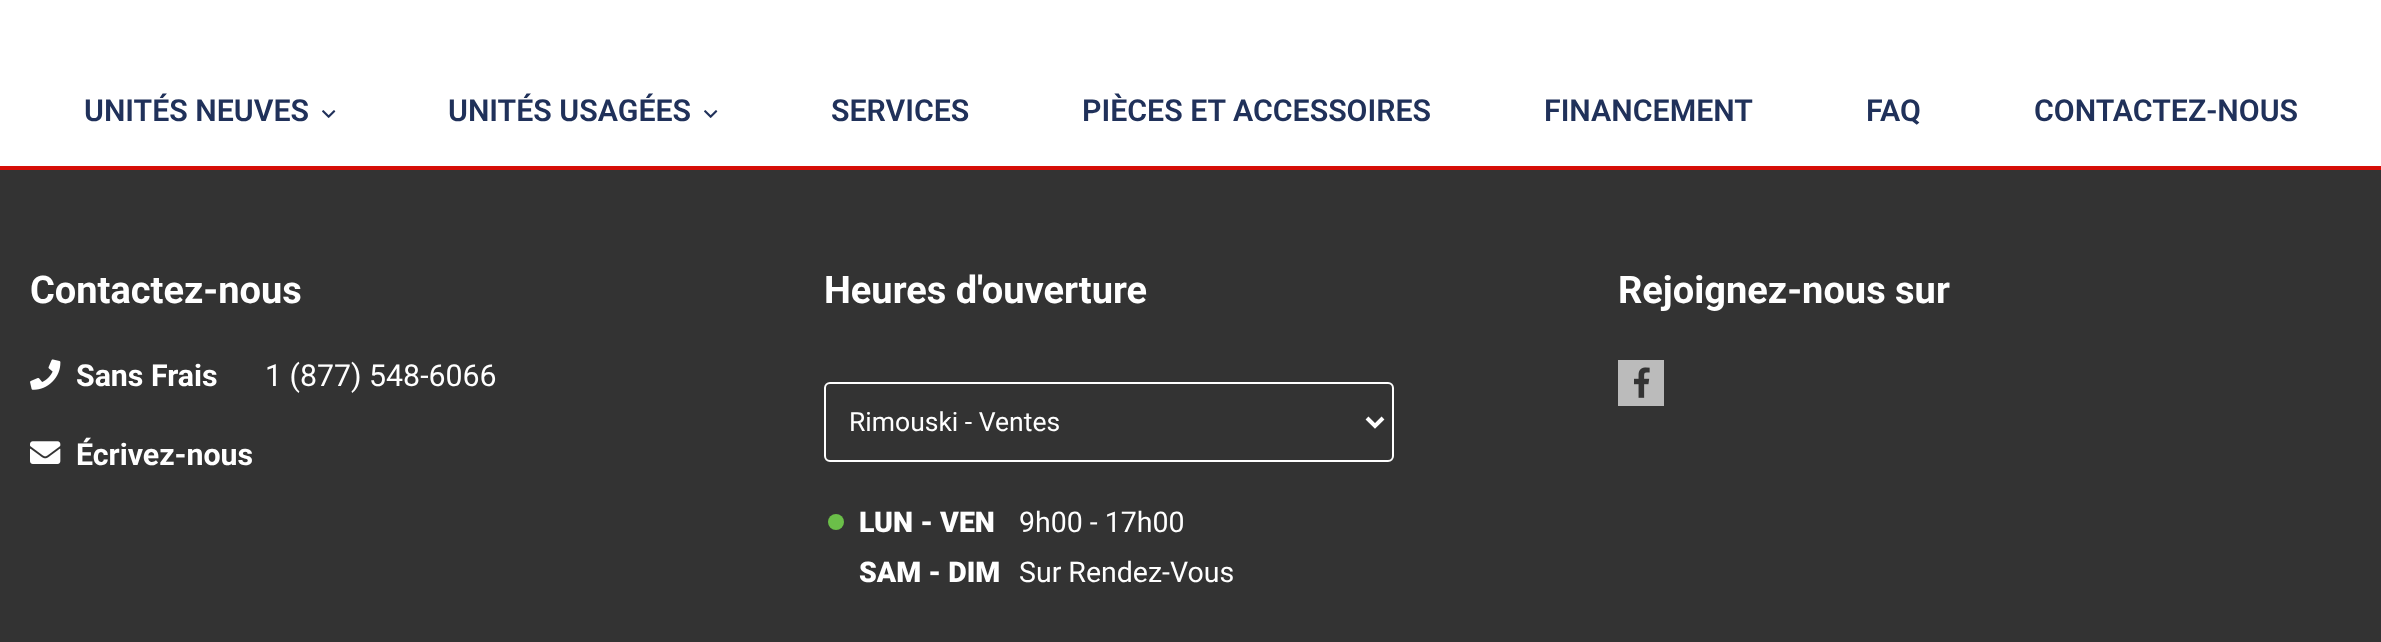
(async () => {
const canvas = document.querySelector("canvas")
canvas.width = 2381
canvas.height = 642
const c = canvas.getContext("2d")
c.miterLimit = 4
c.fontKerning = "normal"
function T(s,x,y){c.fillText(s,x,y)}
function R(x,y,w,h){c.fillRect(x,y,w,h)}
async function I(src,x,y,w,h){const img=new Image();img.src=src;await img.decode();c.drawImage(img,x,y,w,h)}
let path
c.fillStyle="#fff"
R(0,0,2381,642)
c.fillStyle="#d60e07"
R(0,166,2381,4)
c.font="600 30.3px Roboto"
c.fillStyle="#20315a"
T("UNITÉS NEUVES",84,121)
await I("1.png",322,110,14,8)
T("UNITÉS USAGÉES",448,121)
await I("1.png",704,110,14,8)
T("SERVICES",831,121)
T("PIÈCES ET ACCESSOIRES",1082,121)
T("FINANCEMENT",1544,121)
T("FAQ",1866,121)
T("CONTACTEZ-NOUS",2034,121)
c.fillStyle="#333"
R(0,170,2381,472)
c.font="bold 38px Roboto"
c.fillStyle="#fff"
T("Contactez-nous",30,303)
await I("2.png",30,359,31,31)
c.font="bold 30.3px Roboto"
T("Sans Frais",76,386)
c.font="30.3px Roboto"
T("1 (877) 548-6066",265,386)
await I("3.png",30,441,31,23)
c.font="bold 30.3px Roboto"
T("Écrivez-nous",76,465)
c.font="bold 38px Roboto"
T("Heures d'ouverture",824,303)
c.beginPath()
c.roundRect(825,383,568,78,5)
c.strokeStyle="#fff"
c.lineWidth=2
c.stroke()
path = new Path2D("M1367 418l8 8l8-8")
c.lineWidth=4
c.stroke(path)
c.font="26.5px Roboto"
T("Rimouski - Ventes",849,431)
c.fillStyle="#6bbf49"
c.beginPath()
c.arc(836,522,8,0,7)
c.fill()
c.font="900 28.5px Roboto"
c.fillStyle="#fff"
T("LUN - VEN",859,532)
c.font="28.5px Roboto"
T("9h00 - 17h00",1019,532)
c.font="900 28.5px Roboto"
T("SAM - DIM",859,582)
c.font="28.5px Roboto"
T("Sur Rendez-Vous",1019,582)
c.font="bold 38px Roboto"
T("Rejoignez-nous sur",1618,303)
c.fillStyle="#bbb"
R(1618,360,46,46)
await I("4.png",1634,367,16,31)
})()
